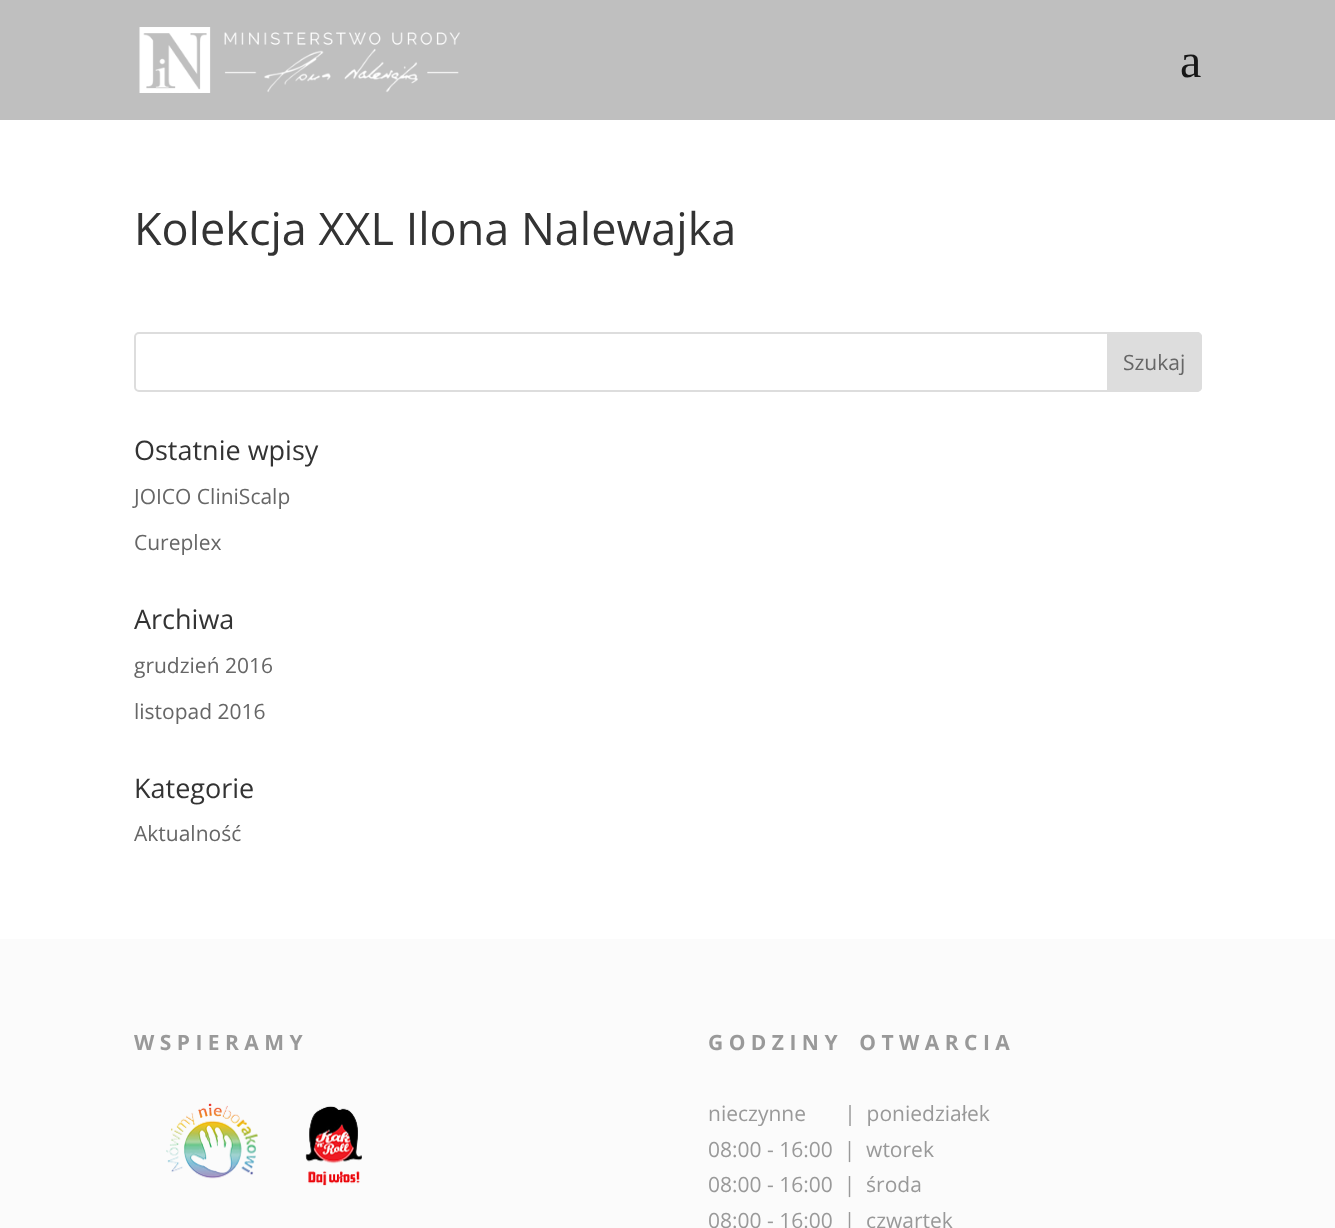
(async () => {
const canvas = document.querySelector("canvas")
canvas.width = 1335
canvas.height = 1228
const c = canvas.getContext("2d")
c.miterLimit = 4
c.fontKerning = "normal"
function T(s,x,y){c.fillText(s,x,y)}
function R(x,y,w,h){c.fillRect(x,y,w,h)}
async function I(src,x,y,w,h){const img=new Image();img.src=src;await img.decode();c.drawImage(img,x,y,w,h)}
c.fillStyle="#fff"
R(0,0,1335,1228)
c.fillStyle="#bfbfbf"
R(0,0,1335,120)
await I("1.png",139,27,321,66)
c.font="48px Liberation Serif"
c.fillStyle="#171717"
T("a",1180,77)
c.font="45px Open Sans"
c.fillStyle="#333"
T("Kolekcja XXL Ilona Nalewajka",134,245)
c.beginPath()
c.roundRect(135,333,1066,58,4)
c.strokeStyle="#ddd"
c.lineWidth=2
c.stroke()
c.fillStyle="#ddd"
c.beginPath()
c.roundRect(1108,333,93,58,[0,4,4,0])
c.fill()
c.stroke()
c.font="21px Open Sans"
c.fillStyle="#666"
T("Szukaj",1123,370)
c.font="27px Open Sans"
c.fillStyle="#333"
T("Ostatnie wpisy",134,460)
c.font="21px Open Sans"
c.fillStyle="#666"
T("JOICO CliniScalp",134,504)
T("Cureplex",134,550)
c.font="27px Open Sans"
c.fillStyle="#333"
T("Archiwa",134,629)
c.font="21px Open Sans"
c.fillStyle="#666"
T("grudzień 2016",134,673)
T("listopad 2016",134,719)
c.font="27px Open Sans"
c.fillStyle="#333"
T("Kategorie",134,798)
c.font="21px Open Sans"
c.fillStyle="#666"
T("Aktualność",134,841)
c.fillStyle="#fbfbfb"
R(0,939,1335,289)
c.font="bold 21px Open Sans"
c.fillStyle="#999"
T("W S P I E R A M Y",134,1050)
await I("2.png",166,1103,196,83)
T("G O D Z I N Y    O T W A R C I A",708,1050)
c.font="21px Open Sans"
T("nieczynne       |  poniedziałek",708,1121)
T("08:00 - 16:00  |  wtorek",708,1157)
T("08:00 - 16:00  |  środa",708,1192)
T("08:00 - 16:00  |  czwartek",708,1228)
})()
